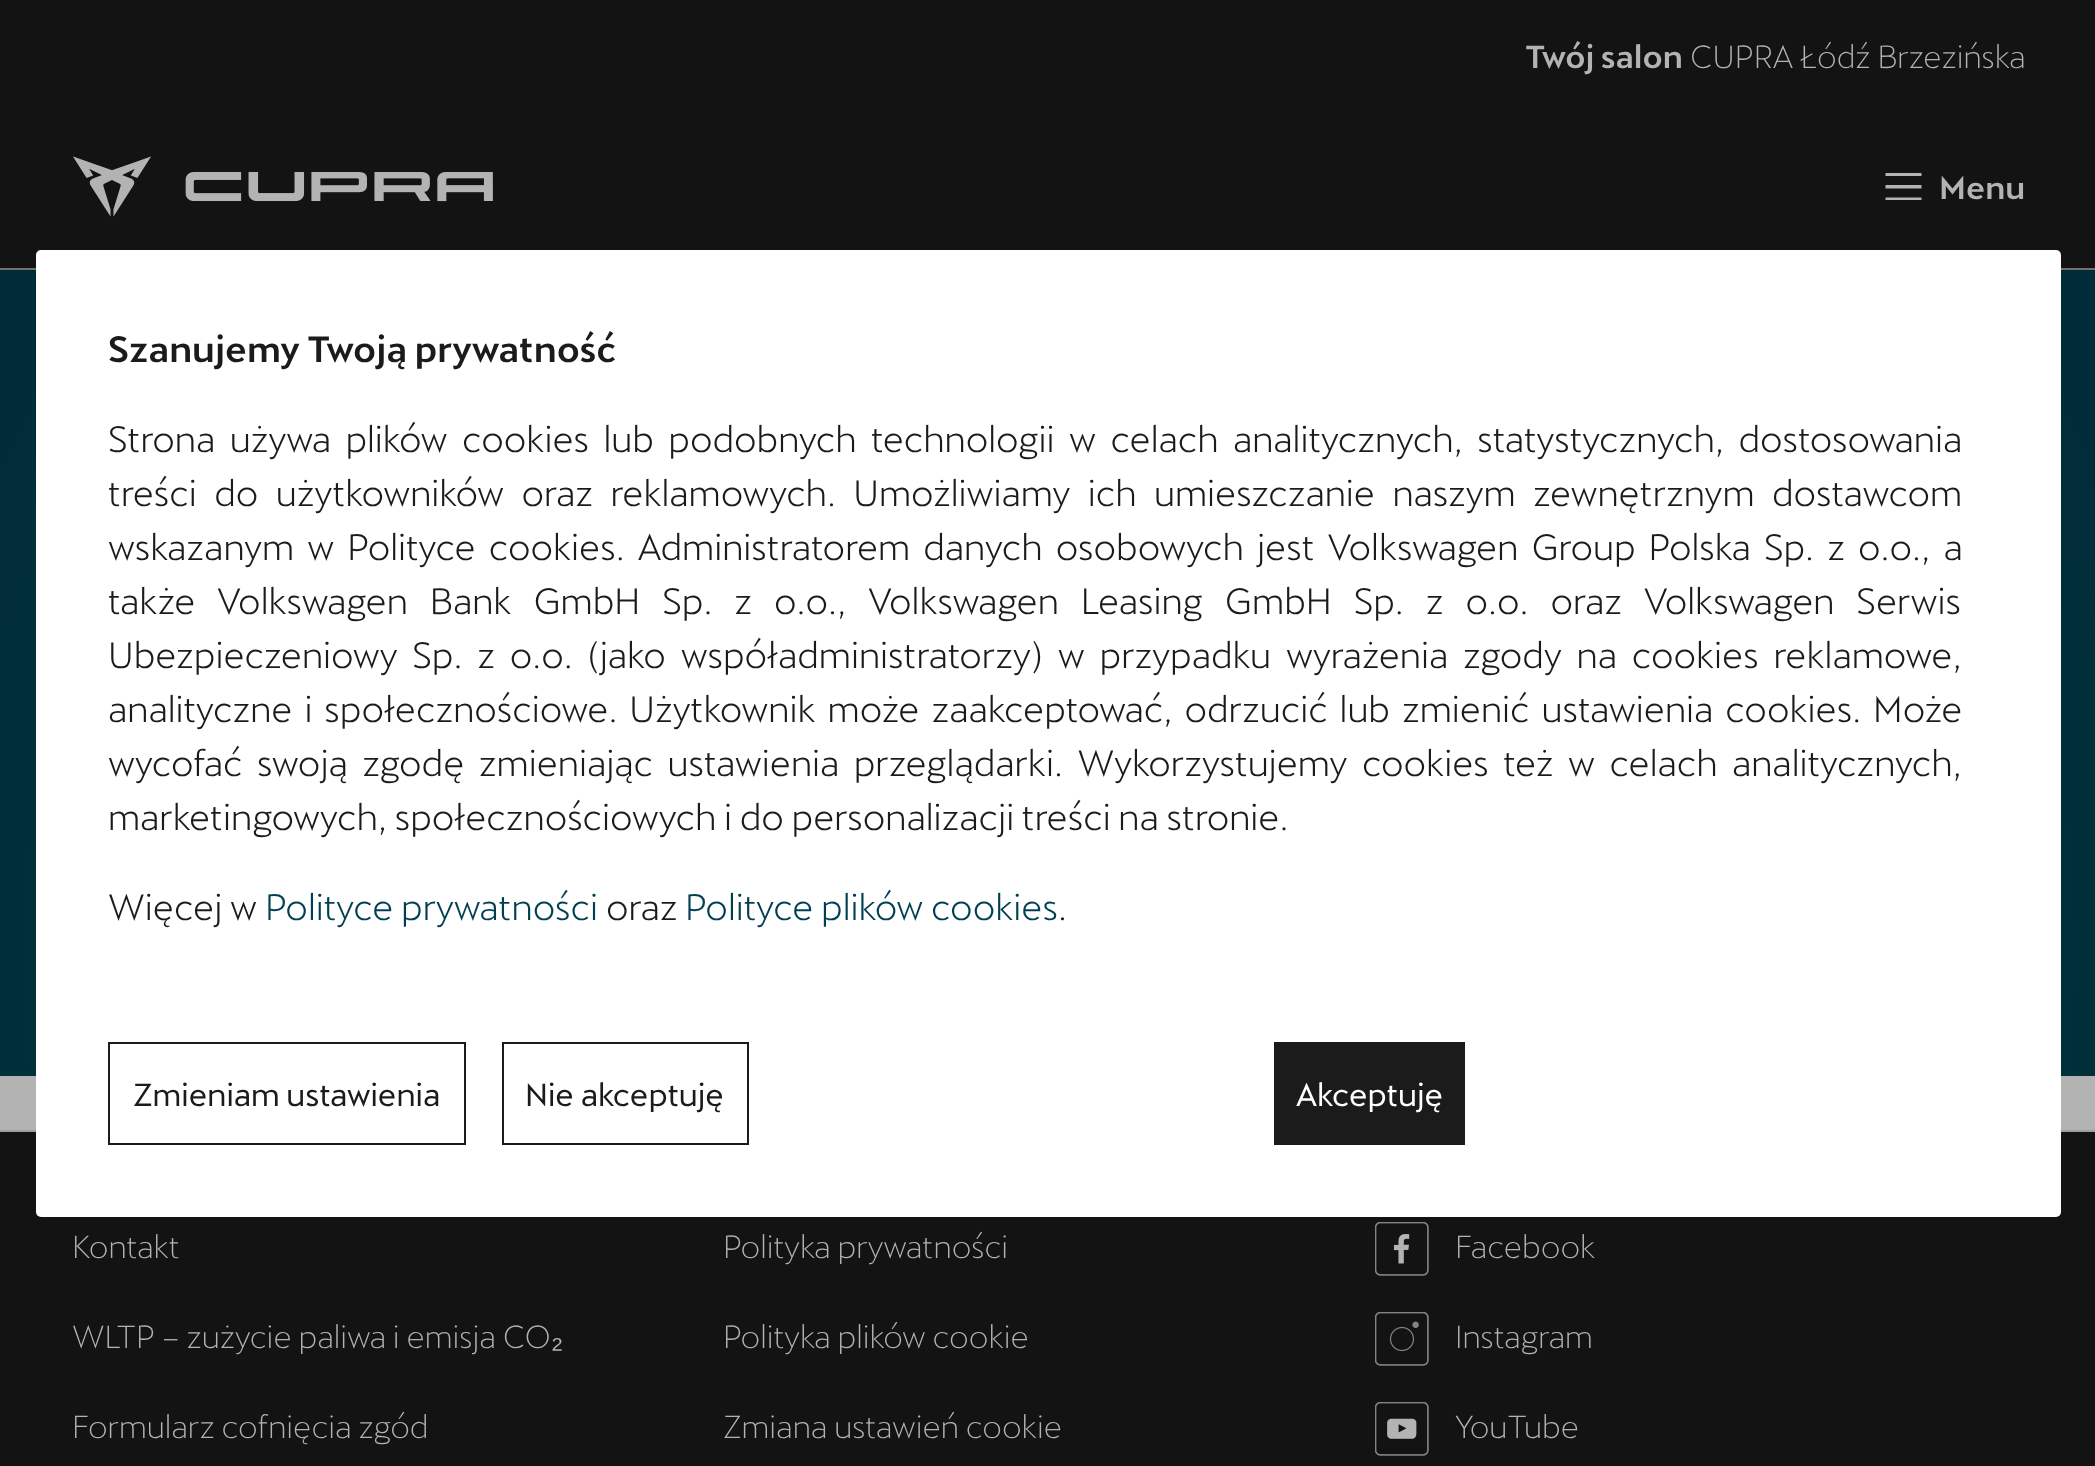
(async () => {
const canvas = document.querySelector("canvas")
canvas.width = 2095
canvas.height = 1466
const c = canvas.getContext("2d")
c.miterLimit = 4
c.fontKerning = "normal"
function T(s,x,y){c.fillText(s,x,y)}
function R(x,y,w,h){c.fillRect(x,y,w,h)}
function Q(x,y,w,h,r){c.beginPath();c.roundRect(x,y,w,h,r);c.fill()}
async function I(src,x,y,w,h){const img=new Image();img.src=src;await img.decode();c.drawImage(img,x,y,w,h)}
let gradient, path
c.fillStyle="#b3b3b3"
R(0,0,2095,1466)
c.fillStyle="#131313"
R(0,0,2095,268)
c.fillStyle="#727272"
R(0,268,2095,2)
c.font="500 31.5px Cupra"
c.fillStyle="#b3b3b3"
T("Twój salon",1525,68)
c.font="300 31.5px Cupra"
T("CUPRA Łódź Brzezińska",1690,68)
await I("1.png",73,156,420,61)
path = new Path2D("M1921.5 197.5v2.5h-36v-2.5zm0-12.5v3.5h-36v-3.5zm0-12v3h-36v-3z")
c.fill(path,"evenodd")
c.font="500 31.5px Cupra"
T("Menu",1939,199)
gradient = c.createRadialGradient(1049,955,0,1049,955,1252)
gradient.addColorStop(0,"#02403a")
gradient.addColorStop(1,"#002b39")
c.fillStyle = gradient
R(0,270,2095,806)
c.fillStyle="#131313"
R(0,1132,2095,334)
c.fillStyle="#9ca0a2"
R(0,1130,2095,2)
c.fillStyle="#fff"
Q(36,250,2025,967,5)
c.font="500 36px Cupra"
c.fillStyle="#1b1b1b"
T("Szanujemy Twoją prywatność",108,362)
c.wordSpacing="6.75px"
c.font="36px 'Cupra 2'"
T("Strona używa plików cookies lub podobnych technologii w celach analitycznych, statystycznych, dostosowania",108,452)
c.wordSpacing="9.75px"
T("treści do użytkowników oraz reklamowych. Umożliwiamy ich umieszczanie naszym zewnętrznym dostawcom",108,506)
c.wordSpacing="5.4px"
T("wskazanym w Polityce cookies. Administratorem danych osobowych jest Volkswagen Group Polska Sp. z o.o., a",108,560)
c.wordSpacing="14.25px"
T("także Volkswagen Bank GmbH Sp. z o.o., Volkswagen Leasing GmbH Sp. z o.o. oraz Volkswagen Serwis",108,614)
c.wordSpacing="7.1px"
T("Ubezpieczeniowy Sp. z o.o. (jako współadministratorzy) w przypadku wyrażenia zgody na cookies reklamowe,",108,668)
c.wordSpacing="4.25px"
T("analityczne i społecznościowe. Użytkownik może zaakceptować, odrzucić lub zmienić ustawienia cookies. Może",108,722)
c.wordSpacing="6.75px"
T("wycofać swoją zgodę zmieniając ustawienia przeglądarki. Wykorzystujemy cookies też w celach analitycznych,",108,776)
c.wordSpacing="0px"
T("marketingowych, społecznościowych i do personalizacji treści na stronie.",108,830)
T("Więcej w",108,920)
c.fillStyle="#003e51"
T("Polityce prywatności",265,920)
c.fillStyle="#1b1b1b"
T("oraz",606,920)
c.fillStyle="#003e51"
T("Polityce plików cookies",685,920)
c.fillStyle="#1b1b1b"
T(".",1058,920)
c.strokeStyle="#1b1b1b"
c.lineWidth=2
c.strokeRect(109,1043,356,101)
c.font="31.5px Cupra"
T("Zmieniam ustawienia",133,1106)
c.strokeRect(503,1043,245,101)
T("Nie akceptuję",525,1106)
R(1274,1042,191,103)
c.fillStyle="#fff"
T("Akceptuję",1296,1106)
c.font="300 31.5px Cupra"
c.fillStyle="#b3b3b3"
T("Kontakt",72,1258)
T("WLTP – zużycie paliwa i emisja CO",72,1348)
c.font="31.5px Liberation Sans"
T("₂",551,1348)
c.font="300 31.5px Cupra"
T("Formularz cofnięcia zgód",72,1438)
T("Polityka prywatności",723,1258)
T("Polityka plików cookie",723,1348)
T("Zmiana ustawień cookie",723,1438)
await I("2.png",1375,1222,54,54)
T("Facebook",1455,1258)
await I("3.png",1375,1312,54,54)
T("Instagram",1455,1348)
await I("4.png",1375,1402,54,54)
T("YouTube",1455,1438)
})()
